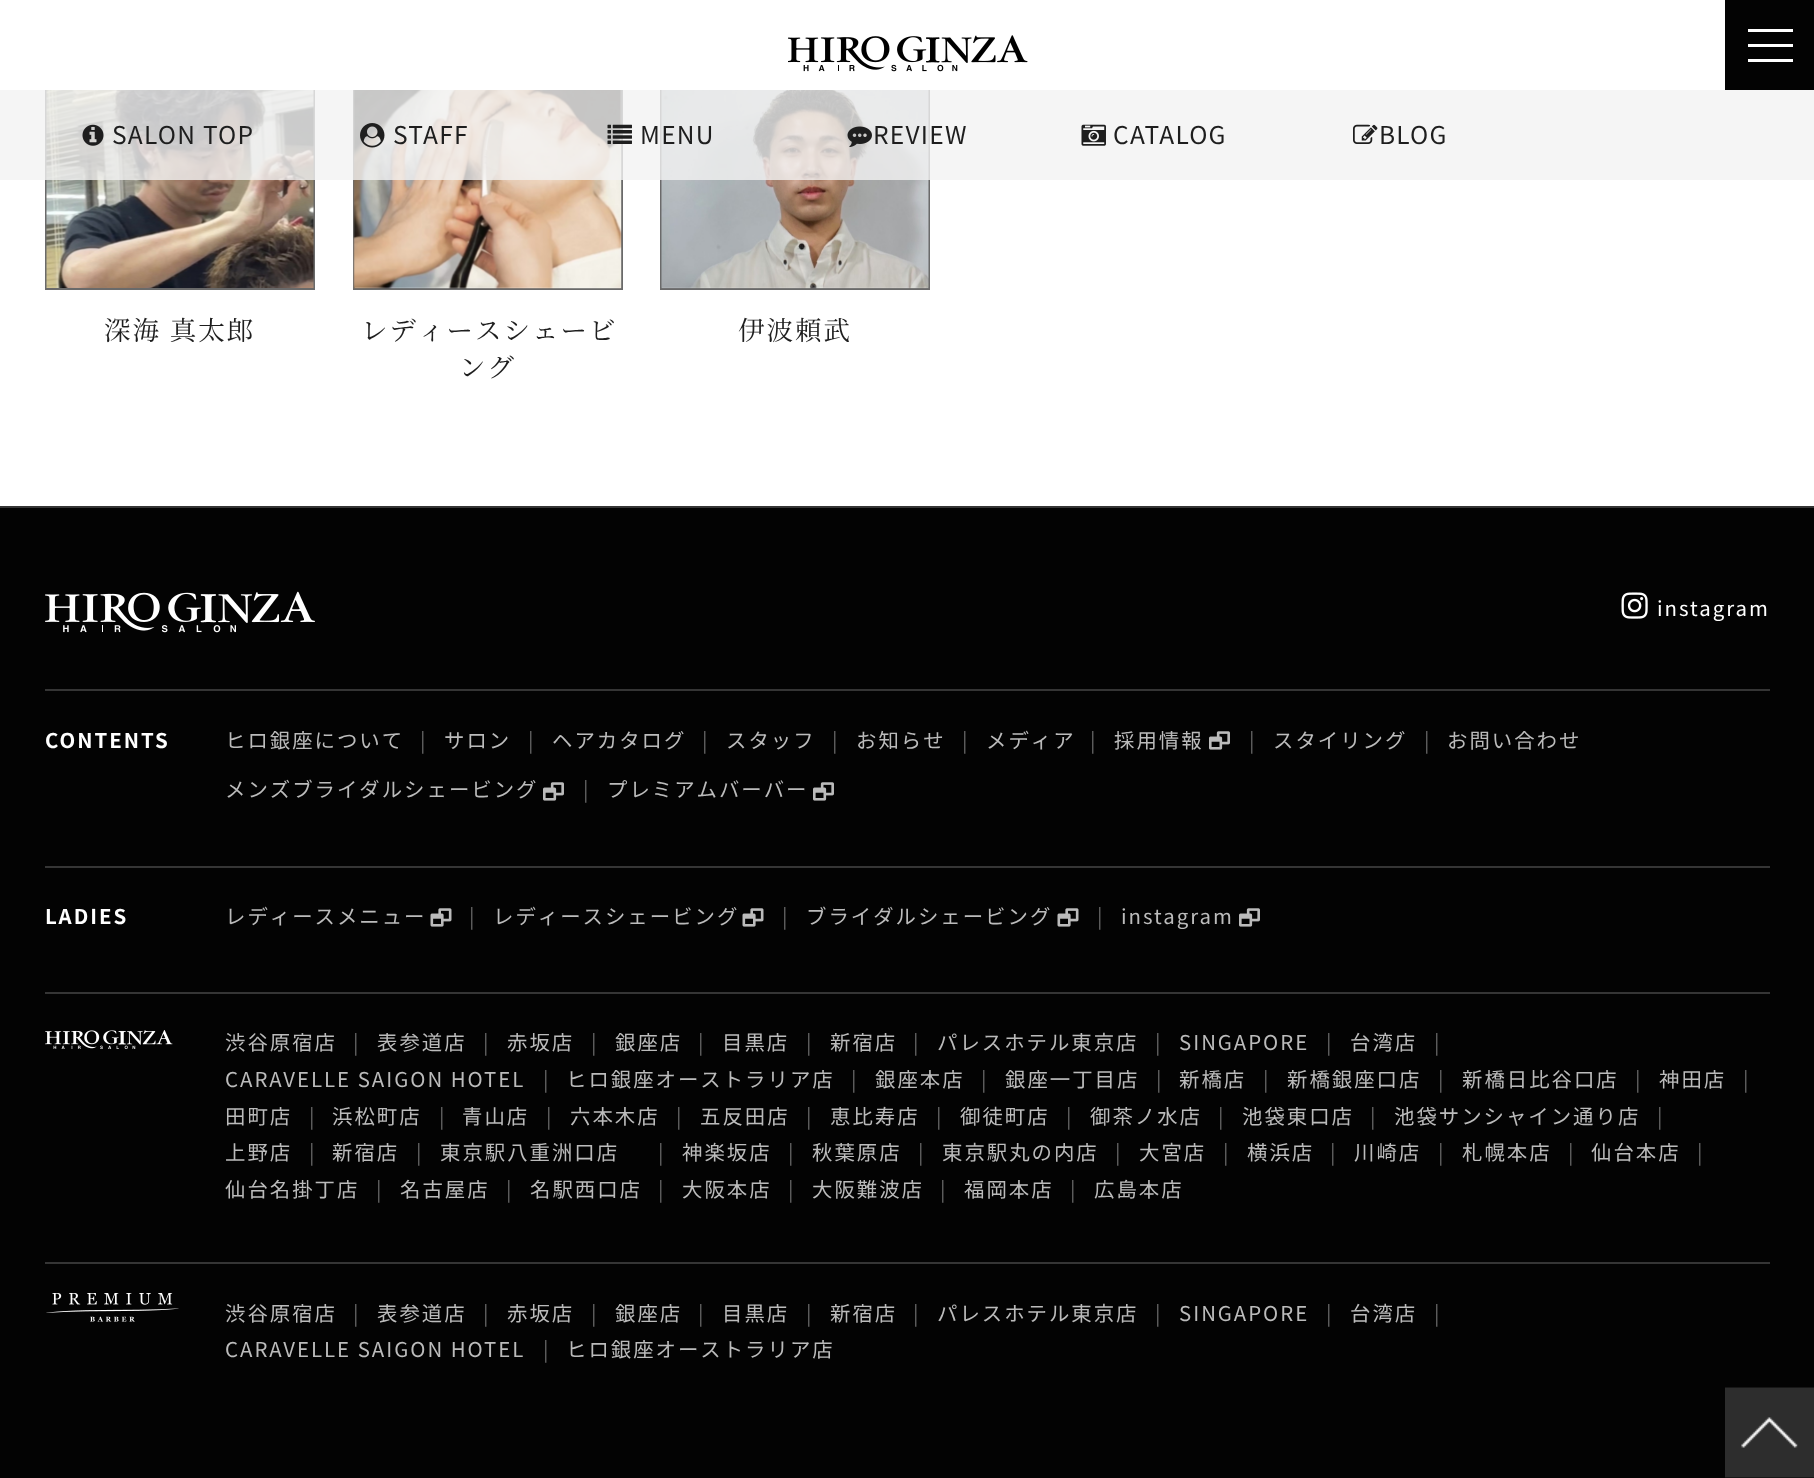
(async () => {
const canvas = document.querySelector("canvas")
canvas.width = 1814
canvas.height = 1478
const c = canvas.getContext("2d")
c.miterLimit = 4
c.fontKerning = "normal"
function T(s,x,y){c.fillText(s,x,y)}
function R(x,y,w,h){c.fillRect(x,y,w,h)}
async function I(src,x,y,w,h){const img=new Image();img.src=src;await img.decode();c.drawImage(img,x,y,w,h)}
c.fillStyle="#fff"
R(0,0,1814,1478)
c.strokeStyle="#6a6a6a"
c.lineWidth=2
c.strokeRect(46,21,268,268)
c.strokeRect(354,21,268,268)
c.strokeRect(661,21,268,268)
R(45,20,885,70)
await I("1.png",788,35,240,37)
c.fillStyle="#030303"
R(1725,0,89,90)
c.fillStyle="#fff"
R(1748,44,45,3)
R(1748,29,45,3)
R(1748,59,45,3)
await I("8.png",46,90,268,198)
await I("9.png",353,90,269,199)
await I("10.png",661,90,268,199)
c.fillStyle="#f3f3f3cc"
R(0,90,1814,90)
await I("2.png",82,124,22,22)
c.letterSpacing="1.25px"
c.font="24.5px Noto Sans JP"
c.fillStyle="#1e1e1e"
T("SALON TOP",112,144)
await I("3.png",360,123,25,25)
T("STAFF",393,144)
await I("4.png",607,124,25,20)
T("MENU",640,144)
await I("5.png",847,126,25,21)
T("REVIEW",873,144)
await I("6.png",1081,124,25,22)
T("CATALOG",1113,144)
await I("7.png",1353,124,25,20)
T("BLOG",1379,144)
c.letterSpacing="2px"
c.font="26.5px Noto Serif JP"
T("深海 真太郎",104,340)
T("レディースシェービ",361,340)
T("ング",459,377)
T("伊波頼武",738,340)
c.fillStyle="#030303"
R(0,508,1814,970)
c.fillStyle="#353535"
R(0,506,1814,2)
await I("11.png",45,591,270,42)
await I("12.png",1621,592,27,27)
c.font="20.4px Noto Sans JP"
c.fillStyle="#fff"
T("instagram",1657,616)
c.fillStyle="#353535"
R(45,689,1725,2)
c.font="bold 20.4px Noto Sans JP"
c.fillStyle="#fff"
T("CONTENTS",45,748)
c.font="20.4px Noto Sans JP"
c.fillStyle="#bbb"
T("ヒロ銀座について",225,748)
c.fillStyle="#646464"
T("|",420,748)
c.fillStyle="#bbb"
T("サロン",444,748)
c.fillStyle="#646464"
T("|",528,748)
c.fillStyle="#bbb"
T("ヘアカタログ",552,748)
c.fillStyle="#646464"
T("|",702,748)
c.fillStyle="#bbb"
T("スタッフ",726,748)
c.fillStyle="#646464"
T("|",832,748)
c.fillStyle="#bbb"
T("お知らせ",856,748)
c.fillStyle="#646464"
T("|",962,748)
c.fillStyle="#bbb"
T("メディア",986,748)
c.fillStyle="#646464"
T("|",1090,748)
c.fillStyle="#bbb"
T("採用情報",1114,748)
await I("13.png",1209,731,21,19)
c.fillStyle="#646464"
T("|",1249,748)
c.fillStyle="#bbb"
T("スタイリング",1273,748)
c.fillStyle="#646464"
T("|",1424,748)
c.fillStyle="#bbb"
T("お問い合わせ",1447,748)
T("メンズブライダルシェービング",225,797)
await I("13.png",543,782,21,19)
c.fillStyle="#646464"
T("|",583,797)
c.fillStyle="#bbb"
T("プレミアムバーバー",607,797)
await I("13.png",813,782,21,19)
c.fillStyle="#353535"
R(45,866,1725,2)
c.font="bold 20.4px Noto Sans JP"
c.fillStyle="#fff"
T("LADIES",45,924)
c.font="20.4px Noto Sans JP"
c.fillStyle="#bbb"
T("レディースメニュー",225,924)
await I("14.png",430,908,22,19)
c.fillStyle="#646464"
T("|",469,924)
c.fillStyle="#bbb"
T("レディースシェービング",493,924)
await I("14.png",742,908,22,19)
c.fillStyle="#646464"
T("|",782,924)
c.fillStyle="#bbb"
T("ブライダルシェービング",806,924)
await I("14.png",1057,908,22,19)
c.fillStyle="#646464"
T("|",1097,924)
c.fillStyle="#bbb"
T("instagram",1121,924)
await I("13.png",1239,908,21,19)
c.fillStyle="#353535"
R(45,992,1725,2)
await I("15.png",45,1030,128,20)
c.fillStyle="#bbb"
T("渋谷原宿店",225,1050)
c.fillStyle="#646464"
T("|",353,1050)
c.fillStyle="#bbb"
T("表参道店",377,1050)
c.fillStyle="#646464"
T("|",483,1050)
c.fillStyle="#bbb"
T("赤坂店",507,1050)
c.fillStyle="#646464"
T("|",591,1050)
c.fillStyle="#bbb"
T("銀座店",615,1050)
c.fillStyle="#646464"
T("|",698,1050)
c.fillStyle="#bbb"
T("目黒店",722,1050)
c.fillStyle="#646464"
T("|",806,1050)
c.fillStyle="#bbb"
T("新宿店",830,1050)
c.fillStyle="#646464"
T("|",913,1050)
c.fillStyle="#bbb"
T("パレスホテル東京店",937,1050)
c.fillStyle="#646464"
T("|",1155,1050)
c.fillStyle="#bbb"
T("SINGAPORE",1179,1050)
c.fillStyle="#646464"
T("|",1326,1050)
c.fillStyle="#bbb"
T("台湾店",1350,1050)
c.fillStyle="#646464"
T("|",1434,1050)
c.fillStyle="#bbb"
T("CARAVELLE SAIGON HOTEL",225,1087)
c.fillStyle="#646464"
T("|",543,1087)
c.fillStyle="#bbb"
T("ヒロ銀座オーストラリア店",566,1087)
c.fillStyle="#646464"
T("|",851,1087)
c.fillStyle="#bbb"
T("銀座本店",875,1087)
c.fillStyle="#646464"
T("|",981,1087)
c.fillStyle="#bbb"
T("銀座一丁目店",1005,1087)
c.fillStyle="#646464"
T("|",1156,1087)
c.fillStyle="#bbb"
T("新橋店",1179,1087)
c.fillStyle="#646464"
T("|",1263,1087)
c.fillStyle="#bbb"
T("新橋銀座口店",1287,1087)
c.fillStyle="#646464"
T("|",1438,1087)
c.fillStyle="#bbb"
T("新橋日比谷口店",1462,1087)
c.fillStyle="#646464"
T("|",1635,1087)
c.fillStyle="#bbb"
T("神田店",1659,1087)
c.fillStyle="#646464"
T("|",1743,1087)
c.fillStyle="#bbb"
T("田町店",225,1124)
c.fillStyle="#646464"
T("|",309,1124)
c.fillStyle="#bbb"
T("浜松町店",332,1124)
c.fillStyle="#646464"
T("|",439,1124)
c.fillStyle="#bbb"
T("青山店",462,1124)
c.fillStyle="#646464"
T("|",546,1124)
c.fillStyle="#bbb"
T("六本木店",570,1124)
c.fillStyle="#646464"
T("|",676,1124)
c.fillStyle="#bbb"
T("五反田店",700,1124)
c.fillStyle="#646464"
T("|",806,1124)
c.fillStyle="#bbb"
T("恵比寿店",830,1124)
c.fillStyle="#646464"
T("|",936,1124)
c.fillStyle="#bbb"
T("御徒町店",960,1124)
c.fillStyle="#646464"
T("|",1066,1124)
c.fillStyle="#bbb"
T("御茶ノ水店",1090,1124)
c.fillStyle="#646464"
T("|",1218,1124)
c.fillStyle="#bbb"
T("池袋東口店",1242,1124)
c.fillStyle="#646464"
T("|",1370,1124)
c.fillStyle="#bbb"
T("池袋サンシャイン通り店",1394,1124)
c.fillStyle="#646464"
T("|",1657,1124)
c.fillStyle="#bbb"
T("上野店",225,1160)
c.fillStyle="#646464"
T("|",309,1160)
c.fillStyle="#bbb"
T("新宿店",332,1160)
c.fillStyle="#646464"
T("|",416,1160)
c.fillStyle="#bbb"
T("東京駅八重洲口店",440,1160)
c.fillStyle="#646464"
T("|",658,1160)
c.fillStyle="#bbb"
T("神楽坂店",682,1160)
c.fillStyle="#646464"
T("|",788,1160)
c.fillStyle="#bbb"
T("秋葉原店",812,1160)
c.fillStyle="#646464"
T("|",918,1160)
c.fillStyle="#bbb"
T("東京駅丸の内店",942,1160)
c.fillStyle="#646464"
T("|",1115,1160)
c.fillStyle="#bbb"
T("大宮店",1139,1160)
c.fillStyle="#646464"
T("|",1223,1160)
c.fillStyle="#bbb"
T("横浜店",1247,1160)
c.fillStyle="#646464"
T("|",1330,1160)
c.fillStyle="#bbb"
T("川崎店",1354,1160)
c.fillStyle="#646464"
T("|",1438,1160)
c.fillStyle="#bbb"
T("札幌本店",1462,1160)
c.fillStyle="#646464"
T("|",1568,1160)
c.fillStyle="#bbb"
T("仙台本店",1591,1160)
c.fillStyle="#646464"
T("|",1697,1160)
c.fillStyle="#bbb"
T("仙台名掛丁店",225,1197)
c.fillStyle="#646464"
T("|",376,1197)
c.fillStyle="#bbb"
T("名古屋店",400,1197)
c.fillStyle="#646464"
T("|",506,1197)
c.fillStyle="#bbb"
T("名駅西口店",530,1197)
c.fillStyle="#646464"
T("|",658,1197)
c.fillStyle="#bbb"
T("大阪本店",682,1197)
c.fillStyle="#646464"
T("|",788,1197)
c.fillStyle="#bbb"
T("大阪難波店",812,1197)
c.fillStyle="#646464"
T("|",940,1197)
c.fillStyle="#bbb"
T("福岡本店",964,1197)
c.fillStyle="#646464"
T("|",1070,1197)
c.fillStyle="#bbb"
T("広島本店",1094,1197)
c.fillStyle="#353535"
R(45,1262,1725,2)
await I("16.png",46,1293,133,29)
c.fillStyle="#bbb"
T("渋谷原宿店",225,1321)
c.fillStyle="#646464"
T("|",353,1321)
c.fillStyle="#bbb"
T("表参道店",377,1321)
c.fillStyle="#646464"
T("|",483,1321)
c.fillStyle="#bbb"
T("赤坂店",507,1321)
c.fillStyle="#646464"
T("|",591,1321)
c.fillStyle="#bbb"
T("銀座店",615,1321)
c.fillStyle="#646464"
T("|",698,1321)
c.fillStyle="#bbb"
T("目黒店",722,1321)
c.fillStyle="#646464"
T("|",806,1321)
c.fillStyle="#bbb"
T("新宿店",830,1321)
c.fillStyle="#646464"
T("|",913,1321)
c.fillStyle="#bbb"
T("パレスホテル東京店",937,1321)
c.fillStyle="#646464"
T("|",1155,1321)
c.fillStyle="#bbb"
T("SINGAPORE",1179,1321)
c.fillStyle="#646464"
T("|",1326,1321)
c.fillStyle="#bbb"
T("台湾店",1350,1321)
c.fillStyle="#646464"
T("|",1434,1321)
c.fillStyle="#bbb"
T("CARAVELLE SAIGON HOTEL",225,1357)
c.fillStyle="#646464"
T("|",543,1357)
c.fillStyle="#bbb"
T("ヒロ銀座オーストラリア店",566,1357)
await I("17.png",1725,1387,89,91)
})()
